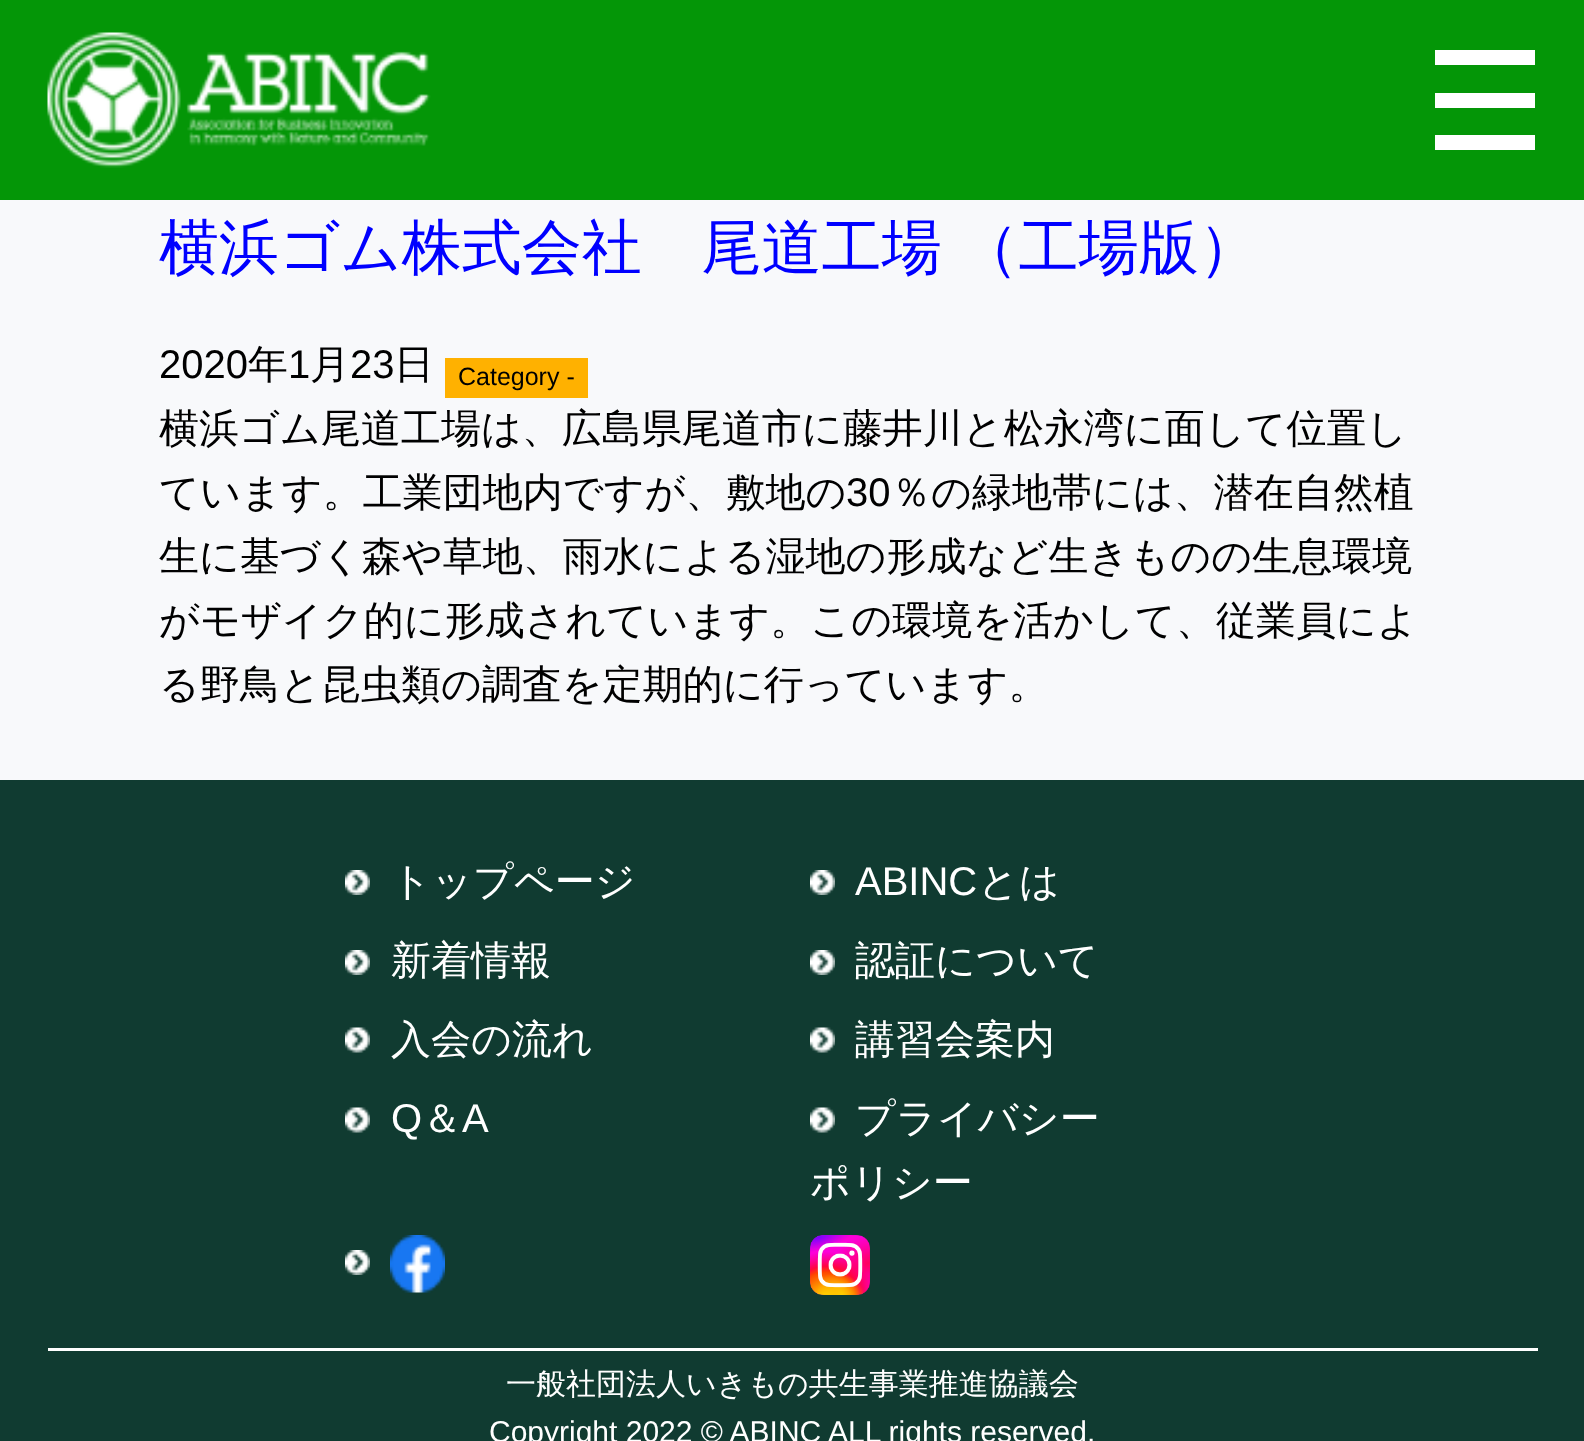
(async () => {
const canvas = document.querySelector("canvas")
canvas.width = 1584
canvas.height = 1441
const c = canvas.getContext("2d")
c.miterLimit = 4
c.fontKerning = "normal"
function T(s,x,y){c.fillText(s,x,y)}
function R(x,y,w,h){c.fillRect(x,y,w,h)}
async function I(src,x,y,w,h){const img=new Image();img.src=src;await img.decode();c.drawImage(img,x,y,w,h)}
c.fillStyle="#f8f9fb"
R(0,0,1584,1441)
c.fillStyle="#049607"
R(0,0,1584,200)
await I("1.png",47,32,384,136)
c.fillStyle="#fff"
R(1435,50,100,15)
R(1435,93,100,15)
R(1435,135,100,15)
c.wordSpacing="-1px"
c.font="500 60px WenQuanYi Zen Hei"
c.fillStyle="#00f"
T("横浜ゴム株式会社　尾道工場 （工場版）",159,268)
c.wordSpacing="0px"
c.font="40px Liberation Sans"
c.fillStyle="#000"
T("2020",159,378)
c.font="500 40px WenQuanYi Zen Hei"
T("年",248,378)
c.font="40px Liberation Sans"
T("1",288,378)
c.font="500 40px WenQuanYi Zen Hei"
T("月",310,378)
c.font="40px Liberation Sans"
T("23",350,378)
c.font="500 40px WenQuanYi Zen Hei"
T("日",394,378)
c.fillStyle="#ffb100"
R(445,358,143,40)
c.font="25px Liberation Sans"
c.fillStyle="#000"
T("Category -",458,385)
c.font="500 40px WenQuanYi Zen Hei"
T("横浜ゴム尾道工場は、広島県尾道市に藤井川と松永湾に面して位置し",159,442)
T("ています。工業団地内ですが、敷地の",159,506)
c.font="40px Liberation Sans"
T("30",846,506)
c.font="500 40px WenQuanYi Zen Hei"
T("％の緑地帯には、潜在自然植",891,506)
T("生に基づく森や草地、雨水による湿地の形成など生きものの生息環境",159,570)
T("がモザイク的に形成されています。この環境を活かして、従業員によ",159,634)
T("る野鳥と昆虫類の調査を定期的に行っています。",159,698)
c.fillStyle="#103b31"
R(0,780,1584,661)
await I("2.png",345,870,25,25)
c.fillStyle="#fff"
T("トップページ",391,895)
await I("3.png",810,870,25,25)
c.font="40px Liberation Sans"
T("ABINC",855,895)
c.font="500 40px WenQuanYi Zen Hei"
T("とは",978,895)
await I("2.png",345,950,25,25)
T("新着情報",391,974)
await I("3.png",810,950,25,25)
T("認証について",855,974)
await I("4.png",345,1027,25,26)
T("入会の流れ",391,1053)
await I("5.png",810,1027,25,26)
T("講習会案内",855,1053)
await I("4.png",345,1107,25,26)
c.font="40px Liberation Sans"
T("Q",391,1132)
c.font="500 40px WenQuanYi Zen Hei"
T("＆",422,1132)
c.font="40px Liberation Sans"
T("A",462,1132)
await I("5.png",810,1107,25,26)
c.font="500 40px WenQuanYi Zen Hei"
T("プライバシー",855,1132)
T("ポリシー",810,1196)
await I("2.png",345,1250,25,25)
await I("6.png",390,1235,55,58)
await I("7.png",810,1235,60,60)
R(48,1348,1490,3)
c.font="500 30px WenQuanYi Zen Hei"
T("一般社団法人いきもの共生事業推進協議会",506,1394)
c.font="30px Liberation Sans"
T("Copyright 2022 © ABINC ALL rights reserved.",489,1442)
})()
